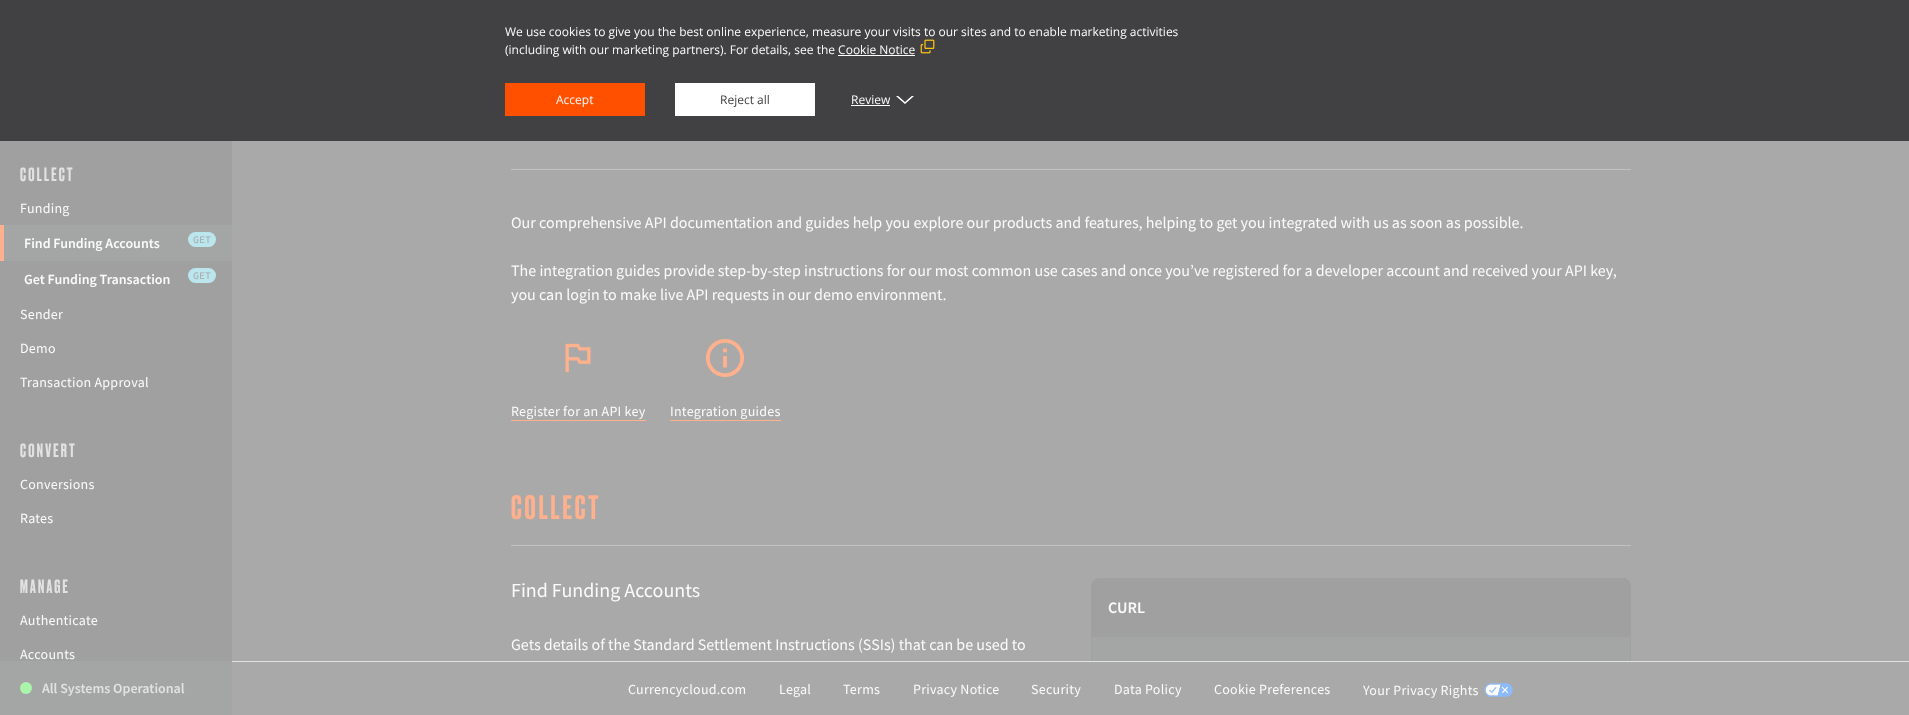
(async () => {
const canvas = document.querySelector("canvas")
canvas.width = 1909
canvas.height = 715
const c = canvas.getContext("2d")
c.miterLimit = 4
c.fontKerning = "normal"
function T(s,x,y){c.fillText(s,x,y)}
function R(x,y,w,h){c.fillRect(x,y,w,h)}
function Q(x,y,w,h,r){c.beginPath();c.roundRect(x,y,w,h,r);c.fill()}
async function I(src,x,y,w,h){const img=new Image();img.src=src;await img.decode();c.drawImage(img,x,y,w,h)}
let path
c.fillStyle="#aaa9aa"
R(0,0,1909,715)
c.fillStyle="#414042"
R(0,0,1909,141)
c.font="12px Open Sans"
c.fillStyle="#fbfbfb"
T("We use cookies to give you the best online experience, measure your visits to our sites and to enable marketing activities",505,36)
await I("1.png",920,39,15,15)
T("(including with our marketing partners). For details, see the Cookie Notice",505,54)
c.fillStyle="#fff"
R(838,55,77,1)
c.fillStyle="#ff5000"
R(505,83,140,33)
c.fillStyle="#fbfbfb"
T("Accept",556,104)
c.fillStyle="#fff"
R(675,83,140,33)
c.fillStyle="#414042"
T("Reject all",720,104)
c.fillStyle="#fbfbfb"
T("Review",851,104)
c.fillStyle="#fff"
R(851,105,39,1)
await I("2.png",896,96,18,8)
c.fillStyle="#9fa09f"
R(0,141,232,520)
c.letterSpacing="2.25px"
c.font="500 18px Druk"
c.fillStyle="#e2e2e3"
T("COLLECT",20,181)
c.letterSpacing="0.25px"
c.font="14px Source Sans Pro"
c.fillStyle="#fbfbfb"
T("Funding",20,213)
c.fillStyle="#a4a5a5"
R(4,225,228,36)
c.fillStyle="#ffb08c"
R(0,225,4,36)
c.letterSpacing="0px"
c.font="600 14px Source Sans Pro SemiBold"
c.fillStyle="#fbfbfb"
T("Find Funding Accounts",24,248)
c.fillStyle="#bbe6ee"
Q(188,232,28,15,7.5)
c.font="200 10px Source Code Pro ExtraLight"
c.fillStyle="#a6a7a7"
T("GET",193,243)
c.font="600 14px Source Sans Pro SemiBold"
c.fillStyle="#fbfbfb"
T("Get Funding Transaction",24,284)
c.fillStyle="#bbe6ee"
Q(188,268,28,15,7.5)
c.font="200 10px Source Code Pro ExtraLight"
c.fillStyle="#a6a7a7"
T("GET",193,279)
c.letterSpacing="0.25px"
c.font="14px Source Sans Pro"
c.fillStyle="#fbfbfb"
T("Sender",20,319)
T("Demo",20,353)
T("Transaction Approval",20,387)
c.letterSpacing="2.25px"
c.font="500 18px Druk"
c.fillStyle="#e2e2e3"
T("CONVERT",20,457)
c.letterSpacing="0.25px"
c.font="14px Source Sans Pro"
c.fillStyle="#fbfbfb"
T("Conversions",20,489)
T("Rates",20,523)
c.letterSpacing="2.25px"
c.font="500 18px Druk"
c.fillStyle="#e2e2e3"
T("MANAGE",20,593)
c.letterSpacing="0.25px"
c.font="14px Source Sans Pro"
c.fillStyle="#fbfbfb"
T("Authenticate",20,625)
T("Accounts",20,659)
c.fillStyle="#a4a5a5"
R(0,661,232,54)
c.fillStyle="#abf4ab"
c.beginPath()
c.arc(26,688,6,0,7)
c.fill()
c.letterSpacing="0px"
c.font="600 14px Source Sans Pro SemiBold"
c.fillStyle="#e2e2e3"
T("All Systems Operational",42,693)
c.fillStyle="#c2c1c2"
R(511,169,1120,1)
c.font="16px Source Sans Pro"
c.fillStyle="#fbfbfb"
T("Our comprehensive API documentation and guides help you explore our products and features, helping to get you integrated with us as soon as possible.",511,228)
T("The integration guides provide step-by-step instructions for our most common use cases and once you’ve registered for a developer account and received your API key,",511,276)
T("you can login to make live API requests in our demo environment.",511,300)
await I("3.png",565,343,26,30)
c.fillStyle="#ffb08c"
R(511,420,135,1)
c.letterSpacing="0.25px"
c.font="14px Source Sans Pro"
c.fillStyle="#fbfbfb"
T("Register for an API key",511,416)
await I("4.png",705,339,40,38)
c.fillStyle="#ffb08c"
R(670,420,111,1)
c.fillStyle="#fbfbfb"
T("Integration guides",670,416)
c.fillStyle="#c2c1c2"
R(511,545,1120,1)
c.letterSpacing="3px"
c.font="500 32px Druk"
c.fillStyle="#ffb08c"
T("COLLECT",511,519)
c.letterSpacing="0px"
c.font="20px Source Sans Pro"
c.fillStyle="#fbfbfb"
T("Find Funding Accounts",511,597)
c.fillStyle="#9fa09f"
c.beginPath()
c.roundRect(1091.5,578.5,539,57,[7.5,7.5,0,0])
c.fill()
c.strokeStyle="#9fa09f"
c.stroke()
c.font="600 16px Source Sans Pro SemiBold"
c.fillStyle="#fbfbfb"
T("CURL",1108,613)
c.fillStyle="#a4a5a5"
R(1092,637,538,24)
c.save()
c.beginPath()
c.rect(232,68,1677,593)
c.clip()
path = new Path2D("M1091.5 636.5h539v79.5c0 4-3.5 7.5-7.5 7.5h-524c-4 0-7.5-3.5-7.5-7.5z")
c.stroke(path)
c.restore()
c.font="16px Source Sans Pro"
c.fillStyle="#fbfbfb"
T("Gets details of the Standard Settlement Instructions (SSIs) that can be used to",511,650)
c.fillStyle="#e2e2e3"
R(232,661,1677,1)
c.letterSpacing="0.25px"
c.font="14px Source Sans Pro"
c.fillStyle="#fbfbfb"
T("Currencycloud.com",628,694)
T("Legal",779,694)
T("Terms",843,694)
T("Privacy Notice",913,694)
T("Security",1031,694)
T("Data Policy",1114,694)
T("Cookie Preferences",1214,694)
T("Your Privacy Rights",1363,695)
await I("5.png",1484,683,29,14)
})()
